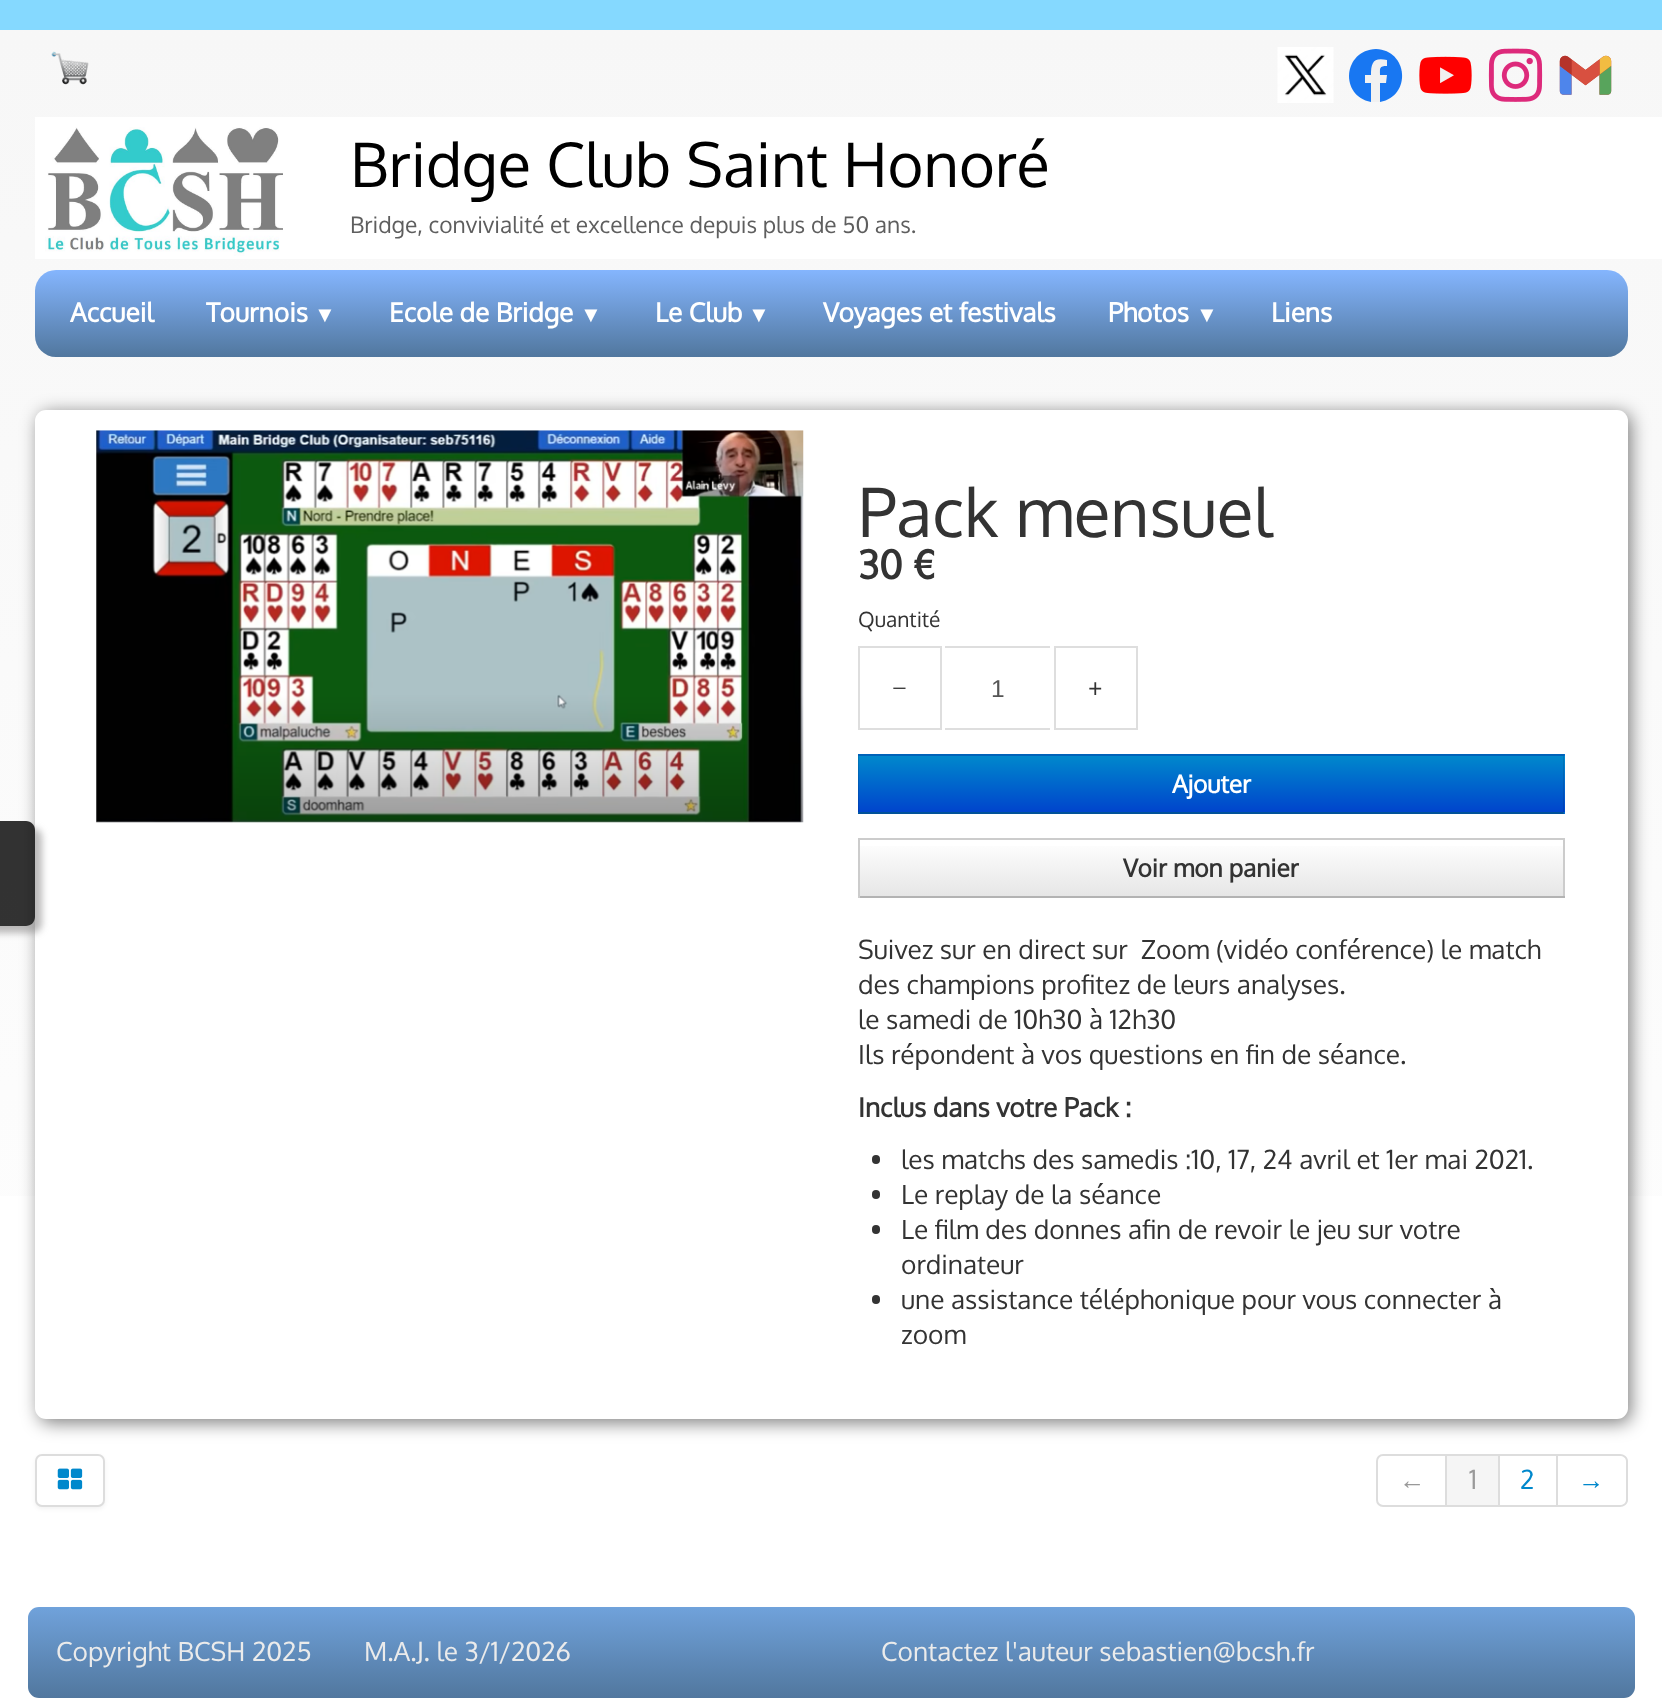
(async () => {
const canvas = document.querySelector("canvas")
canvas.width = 1662
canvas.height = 1700
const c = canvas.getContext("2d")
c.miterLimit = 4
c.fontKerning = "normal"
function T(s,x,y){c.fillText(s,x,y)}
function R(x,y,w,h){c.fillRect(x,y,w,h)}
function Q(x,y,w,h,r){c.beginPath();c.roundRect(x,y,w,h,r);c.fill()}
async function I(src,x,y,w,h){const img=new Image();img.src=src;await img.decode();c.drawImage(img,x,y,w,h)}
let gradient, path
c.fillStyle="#fff"
R(0,0,1662,1700)
gradient = c.createLinearGradient(831,30,831,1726)
gradient.addColorStop(0,"#f7f7f7")
gradient.addColorStop(1,"#fff")
c.fillStyle = gradient
R(0,30,1662,1166)
c.fillStyle="#00000080"
c.filter="blur(9px)"
c.beginPath()
c.roundRect(39,413,1592,1010,11)
c.fill()
c.filter="none"
c.fillStyle="#fff"
Q(35,410,1593,1009,11)
c.save()
path = new Path2D("M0 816h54v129h-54zm-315 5h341c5 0 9 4 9 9v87c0 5-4 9-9 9h-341z")
c.clip(path,"evenodd")
c.fillStyle="#79777782"
c.filter="blur(3.5px)"
c.beginPath()
c.roundRect(-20,828,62,105,9)
c.fill()
c.filter="none"
c.restore()
c.fillStyle="#000000cc"
path = new Path2D("M-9 821h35c5 0 9 4 9 9v87c0 5-4 9-9 9h-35z")
c.fill(path)
c.fillStyle="#85d9ff"
R(0,0,1662,30)
await I("1.png",51,51,38,34)
await I("2.png",1277,47,57,56)
c.fillStyle="#1877f2"
path = new Path2D("M1376 49c-33 1-37 47-5 53h9c32-6 28-52-4-53z")
c.fill(path)
await I("3.png",1419,56,53,38)
await I("4.png",1488,48,55,54)
await I("5.png",1559,55,53,40)
c.fillStyle="#f1f1f1"
path = new Path2D("M1380 83h6l1-8h-7c0-7-1-9 7-9v-6c-14-3-16 3-16 15h-6v8h6v19h9z")
c.fill(path)
c.fillStyle="#fff"
R(35,117,1627,142)
await I("6.png",45,127,238,129)
c.font="61.25px Oxygen"
c.fillStyle="#000"
T("Bridge Club Saint Honoré",350,187)
c.font="22.75px Oxygen"
c.fillStyle="#5e5e5e"
T("Bridge, convivialité et excellence depuis plus de 50 ans.",350,233)
gradient = c.createLinearGradient(831,269,831,357)
gradient.addColorStop(0,"#85b6ff")
gradient.addColorStop(1,"#51779e")
c.fillStyle = gradient
Q(35,270,1593,87,21)
c.font="bold 26.25px Oxygen"
c.fillStyle="#fff"
T("Accueil",70,322)
T("Tournois",206,322)
c.font="bold 22px Liberation Serif"
T("▼",314,322)
c.font="bold 26.25px Oxygen"
T("Ecole de Bridge",389,322)
c.font="bold 22px Liberation Serif"
T("▼",580,322)
c.font="bold 26.25px Oxygen"
T("Le Club",655,322)
c.font="bold 22px Liberation Serif"
T("▼",748,322)
c.font="bold 26.25px Oxygen"
T("Voyages et festivals",823,322)
T("Photos",1108,322)
c.font="bold 22px Liberation Serif"
T("▼",1196,322)
c.font="bold 26.25px Oxygen"
T("Liens",1271,322)
await I("7.png",96,430,708,393)
c.font="67.5px Oxygen"
c.fillStyle="#333"
T("Pack mensuel",858,537)
c.font="bold 39px Oxygen"
T("30 €",858,579)
c.font="21px Oxygen"
T("Quantité",858,627)
c.strokeStyle="#dedede"
c.lineWidth=2
c.strokeRect(859,647,82,82)
c.font="26.25px Liberation Serif"
T("−",892,697)
c.fillStyle="#dedede"
R(945,646,105,2)
R(945,728,105,2)
c.font="24.5px Liberation Sans"
c.fillStyle="#555"
T("1",991,697)
c.strokeRect(1055,647,82,82)
c.font="26.25px Oxygen"
c.fillStyle="#333"
T("+",1088,697)
c.fillStyle="#006dcc"
R(858,754,707,60)
gradient = c.createLinearGradient(1211,756,1211,812)
gradient.addColorStop(0,"#08c")
gradient.addColorStop(1,"#04c")
c.fillStyle = gradient
R(858,756,707,56)
c.fillStyle="#0062b8"
path = new Path2D("M858 754h706l-1 2h-704z")
c.fill(path)
c.fillStyle="#0000001a"
path = new Path2D("M1564 754v60l-1-2v-56z")
c.fill(path)
c.fillStyle="#00000040"
path = new Path2D("M1564 814h-706l1-2h704z")
c.fill(path)
c.fillStyle="#0000001a"
path = new Path2D("M858 814v-60l1 2v56z")
c.fill(path)
c.font="bold 24.5px Oxygen"
c.fillStyle="#fff"
T("Ajouter",1172,793)
gradient = c.createLinearGradient(1211,840,1211,896)
gradient.addColorStop(0,"#fff")
gradient.addColorStop(1,"#e6e6e6")
c.fillStyle = gradient
R(860,846,703,50)
c.fillStyle="#ccc"
R(858,838,707,2)
R(1563,838,2,60)
c.fillStyle="#b3b3b3"
R(858,896,707,2)
c.fillStyle="#ccc"
R(858,838,2,60)
c.fillStyle="#333"
T("Voir mon panier",1123,877)
c.font="26.25px Oxygen"
T("Suivez sur en direct sur  Zoom (vidéo conférence) le match",858,959)
T("des champions profitez de leurs analyses.",858,994)
T("le samedi de 10h30 à 12h30",858,1029)
T("Ils répondent à vos questions en fin de séance.",858,1064)
c.font="bold 26.25px Oxygen"
T("Inclus dans votre Pack :",858,1117)
Q(872,1155,8,9,4)
c.font="26.25px Oxygen"
T("les matchs des samedis :10, 17, 24 avril et 1er mai 2021.",901,1169)
Q(872,1190,8,9,4)
T("Le replay de la séance",901,1204)
Q(872,1225,8,9,4)
T("Le film des donnes afin de revoir le jeu sur votre",901,1239)
T("ordinateur",901,1274)
Q(872,1295,8,9,4)
T("une assistance téléphonique pour vous connecter à",901,1309)
T("zoom",901,1344)
c.fillStyle="#0000000d"
c.filter="blur(2px)"
c.beginPath()
c.roundRect(35,1456,70,53,7)
c.fill()
c.filter="none"
c.fillStyle="#fff"
c.beginPath()
c.roundRect(36,1455,68,51,6)
c.fill()
c.strokeStyle="#ddd"
c.stroke()
await I("8.png",57,1468,26,22)
c.beginPath()
c.roundRect(1377,1455,69,51,[6,0,0,6])
c.stroke()
c.font="26.25px Liberation Serif"
c.fillStyle="#999"
T("←",1399,1489)
c.fillStyle="#f5f5f5"
R(1447,1456,51,49)
c.fillStyle="#ddd"
R(1447,1454,111,2)
R(1498,1454,2,53)
R(1447,1505,53,2)
c.font="26.25px Oxygen"
c.fillStyle="#999"
T("1",1469,1489)
c.fillStyle="#ddd"
R(1556,1454,2,53)
R(1500,1505,58,2)
c.fillStyle="#08c"
T("2",1520,1489)
c.fillStyle="#ddd"
path = new Path2D("M1558 1454h62c4 0 8 3 8 7v39c0 4-4 7-8 7h-62zm0 2h62c3 0 6 2 6 5v39c0 3-3 5-6 5h-62z")
c.fill(path,"evenodd")
c.font="26.25px Liberation Serif"
c.fillStyle="#08c"
T("→",1578,1489)
gradient = c.createLinearGradient(831,1607,831,1698)
gradient.addColorStop(0,"#70a2db")
gradient.addColorStop(1,"#51779e")
c.fillStyle = gradient
Q(28,1607,1607,91,11)
c.font="26.25px Oxygen"
c.fillStyle="#ebebeb"
T("Copyright BCSH 2025        M.A.J. le 3/1/2026",56,1661)
T("Contactez l'auteur sebastien@bcsh.fr",881,1661)
})()
